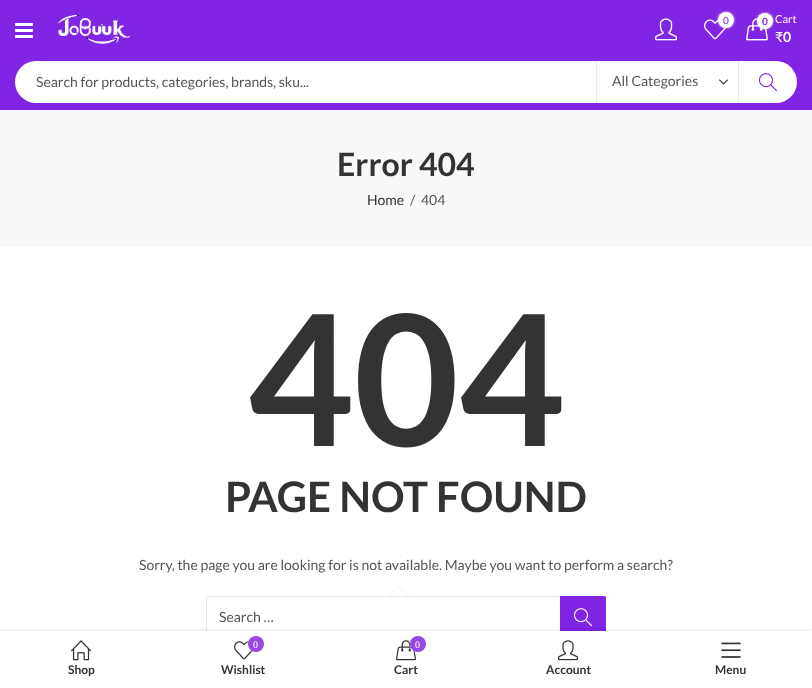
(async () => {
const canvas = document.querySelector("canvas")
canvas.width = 812
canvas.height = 688
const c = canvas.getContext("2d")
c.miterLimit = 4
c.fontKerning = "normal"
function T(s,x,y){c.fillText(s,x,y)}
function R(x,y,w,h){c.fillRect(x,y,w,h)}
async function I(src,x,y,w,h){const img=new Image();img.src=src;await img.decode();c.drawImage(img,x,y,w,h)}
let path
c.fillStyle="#fff"
R(0,0,812,688)
c.fillStyle="#8224e3"
R(0,0,812,110)
await I("1.png",15,23,18,15)
await I("2.png",57,15,73,29)
await I("3.png",655,18,22,23)
await I("4.png",704,19,22,21)
c.fillStyle="#ffffffb3"
c.filter="blur(1.5px)"
c.beginPath()
c.roundRect(718,12,16,16,8)
c.fill()
c.filter="none"
c.fillStyle="#fff"
c.beginPath()
c.arc(726,20,8,0,7)
c.fill()
c.font="10px Lato"
c.fillStyle="#8224e3"
T("0",723,24)
await I("5.png",746,18,22,23)
c.fillStyle="#ffffffb3"
c.filter="blur(1.5px)"
c.beginPath()
c.roundRect(757,13,16,16,8)
c.fill()
c.filter="none"
c.fillStyle="#fff"
c.beginPath()
c.arc(765,21,8,0,7)
c.fill()
c.font="bold 10px Lato"
c.fillStyle="#8224e3"
T("0",762,25)
c.font="11px Lato"
c.fillStyle="#fff"
T("Cart",775,23)
c.font="14px 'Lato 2'"
T("₹",775,42)
c.font="bold 14px Lato"
T("0",783,42)
c.beginPath()
c.roundRect(15,61,582,42,[21,0,0,21])
c.fill()
c.fillStyle="#e9e9e9"
R(596,61,1,42)
c.font="14px Lato"
c.fillStyle="#555"
T("Search for products, categories, brands, sku...",36,87)
c.fillStyle="#fff"
R(597,61,141,42)
await I("6.png",719,79,9,6)
c.fillStyle="#e9e9e9"
R(738,61,1,42)
c.fillStyle="#555"
T("All Categories",612,86)
c.fillStyle="#fff"
c.beginPath()
c.roundRect(739,61,58,42,[0,21,21,0])
c.fill()
await I("7.png",759,73,18,19)
c.fillStyle="#f8f8f8"
R(0,110,812,137)
c.font="bold 32px Lato"
c.fillStyle="#333"
T("Error 404",337,176)
c.font="14px Lato"
T("Home",367,205)
c.fillStyle="#555"
T("/",410,205)
T("404",421,205)
c.font="bold 182px Lato"
c.fillStyle="#333"
T("404",248,446)
c.font="bold 42px Lato"
T("PAGE NOT FOUND",225,512)
c.font="14px Lato"
c.fillStyle="#555"
T("Sorry, the page you are looking for is not available. Maybe you want to perform a search?",139,570)
c.fillStyle="#f0f0f0"
path = new Path2D("M409 596h-20l10-10z")
c.fill(path)
c.fillStyle="#fff"
path = new Path2D("M408 596h-18l9-9z")
c.fill(path)
c.strokeStyle="#e9e9e9"
c.strokeRect(206.5,596.5,399,41)
c.fillStyle="#555"
T("Search …",219,622)
c.fillStyle="#8224e3"
c.beginPath()
c.roundRect(560,596,46,42,[0,2,2,0])
c.fill()
await I("8.png",574,608,18,19)
c.fillStyle="#00000026"
c.filter="blur(2px)"
c.beginPath()
c.rect(0,631,812,57)
c.fill()
c.filter="none"
c.fillStyle="#fff"
R(0,631,812,57)
await I("9.png",71,640,20,21)
c.font="bold 12px Lato"
c.fillStyle="#333"
T("Shop",68,674)
await I("10.png",234,641,19,19)
c.fillStyle="#ffffffb3"
c.filter="blur(1.5px)"
c.beginPath()
c.roundRect(248,636,16,16,8)
c.fill()
c.filter="none"
c.fillStyle="#9548e2"
c.beginPath()
c.arc(256,644,8,0,7)
c.fill()
c.font="10px Liberation Serif"
c.fillStyle="#fff"
T("0",253,648)
c.font="bold 12px Lato"
c.fillStyle="#333"
T("Wishlist",221,674)
await I("11.png",396,640,20,21)
c.fillStyle="#ffffffb3"
c.filter="blur(1.5px)"
c.beginPath()
c.roundRect(410,636,16,16,8)
c.fill()
c.filter="none"
c.fillStyle="#9548e2"
c.beginPath()
c.arc(418,644,8,0,7)
c.fill()
c.font="10px Liberation Serif"
c.fillStyle="#fff"
T("0",415,648)
c.font="bold 12px Lato"
c.fillStyle="#333"
T("Cart",394,674)
await I("12.png",558,640,20,21)
T("Account",546,674)
await I("13.png",721,642,20,16)
T("Menu",715,674)
})()
